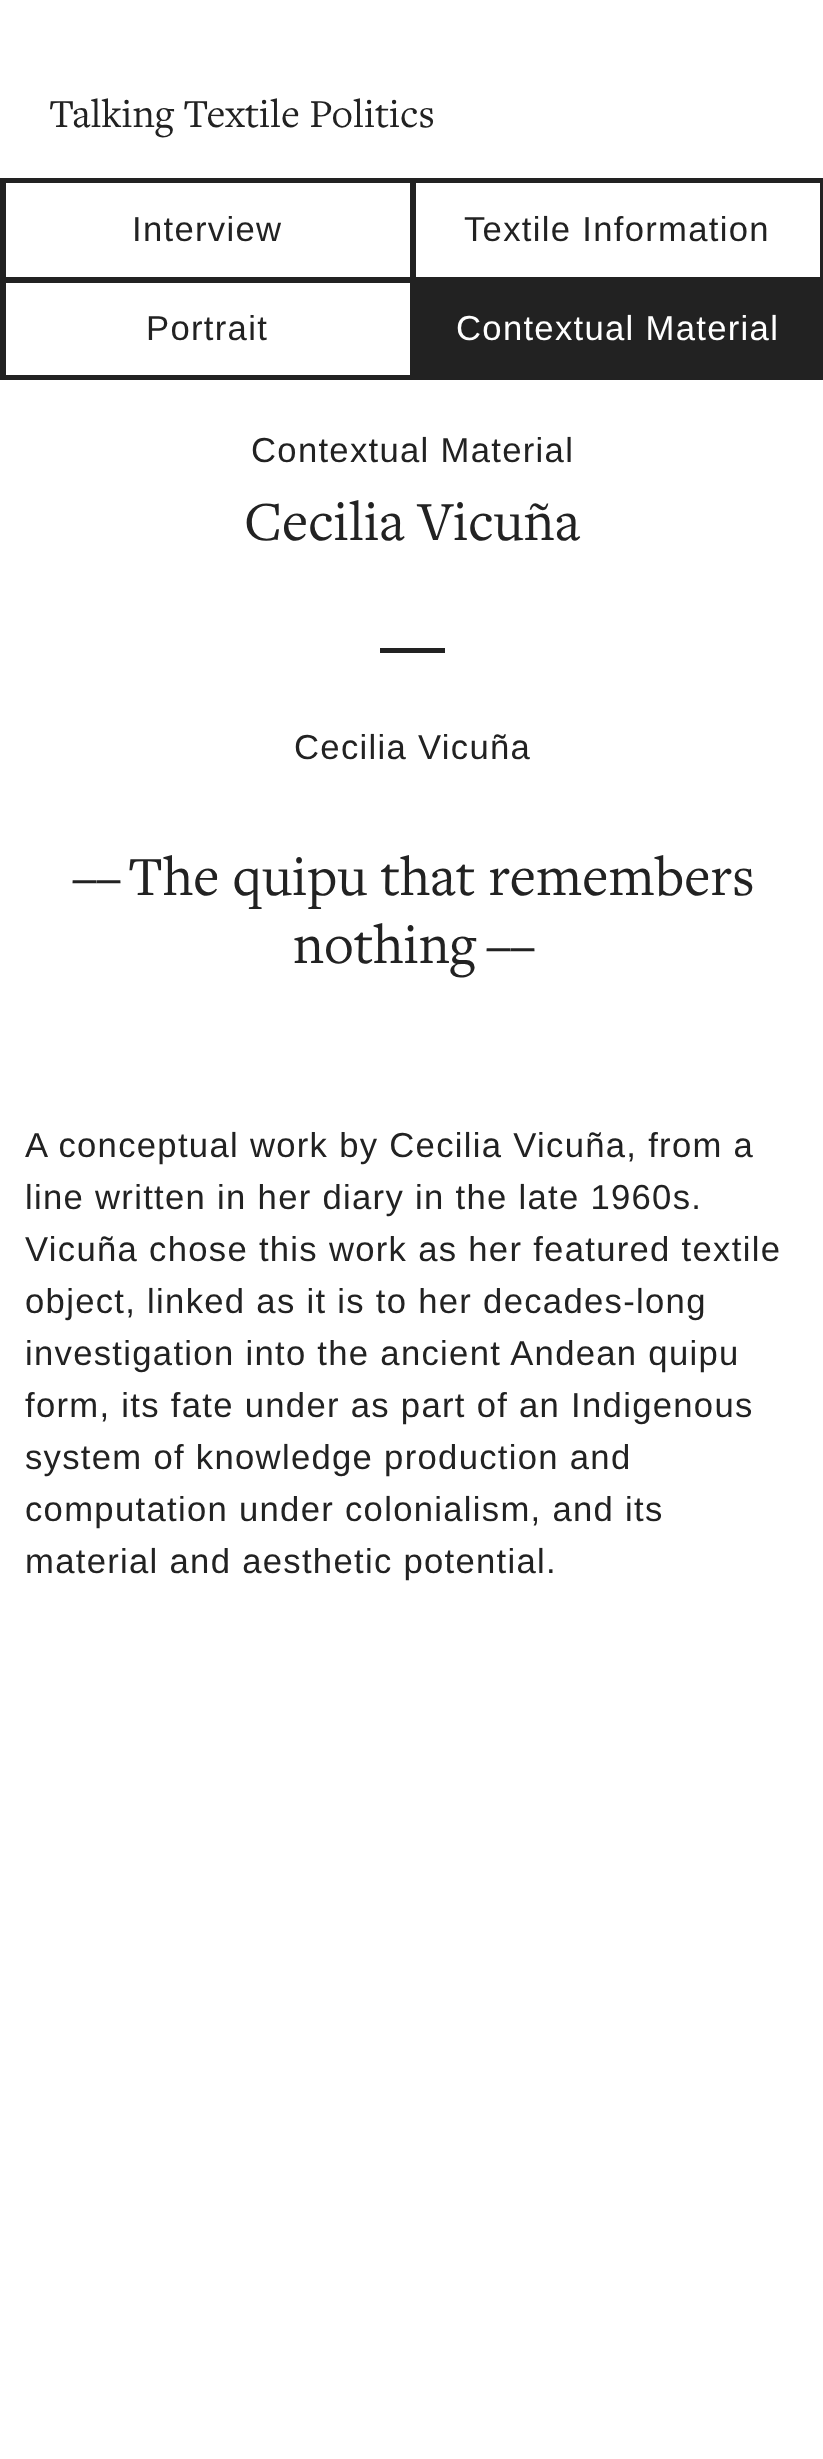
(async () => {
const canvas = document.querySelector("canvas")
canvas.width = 823
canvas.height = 2459
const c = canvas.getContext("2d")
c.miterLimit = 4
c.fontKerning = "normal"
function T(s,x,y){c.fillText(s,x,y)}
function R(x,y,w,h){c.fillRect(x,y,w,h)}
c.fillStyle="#fff"
R(0,0,823,2459)
c.font="41.25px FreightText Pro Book"
c.fillStyle="#222"
T("Talking Textile Politics",49,127)
c.strokeStyle="#222"
c.lineWidth=3
c.strokeRect(1.5,179.5,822,199)
c.strokeRect(4.5,181.5,407,97)
c.letterSpacing="1.3px"
c.font="34.65px Liberation Sans"
T("Interview",132,241)
c.strokeRect(414.5,181.5,407,97)
T("Textile Information",464,241)
c.strokeRect(4.5,281.5,407,95)
T("Portrait",146,340)
R(413,280,409,97)
c.fillStyle="#fff"
T("Contextual Material",456,340)
c.fillStyle="#222"
T("Contextual Material",251,462)
c.letterSpacing="0px"
c.font="57.25px FreightText Pro Book"
T("Cecilia Vicuña",244,540)
R(380,648,65,5)
c.letterSpacing="1.3px"
c.font="34.65px Liberation Sans"
T("Cecilia Vicuña",294,759)
c.letterSpacing="-3px"
c.font="57.25px FreightText Pro Book"
T("––",71,895)
c.letterSpacing="0px"
T("The quipu that remembers",128,895)
T("nothing",293,963)
c.letterSpacing="-3px"
T("––",485,963)
c.letterSpacing="1.3px"
c.font="34.65px Liberation Sans"
T("A conceptual work by Cecilia Vicuña, from a",25,1157)
T("line written in her diary in the late 1960s.",25,1209)
T("Vicuña chose this work as her featured textile",25,1261)
T("object, linked as it is to her decades-long",25,1313)
T("investigation into the ancient Andean quipu",25,1365)
T("form, its fate under as part of an Indigenous",25,1417)
T("system of knowledge production and",25,1469)
T("computation under colonialism, and its",25,1521)
T("material and aesthetic potential.",25,1573)
})()
